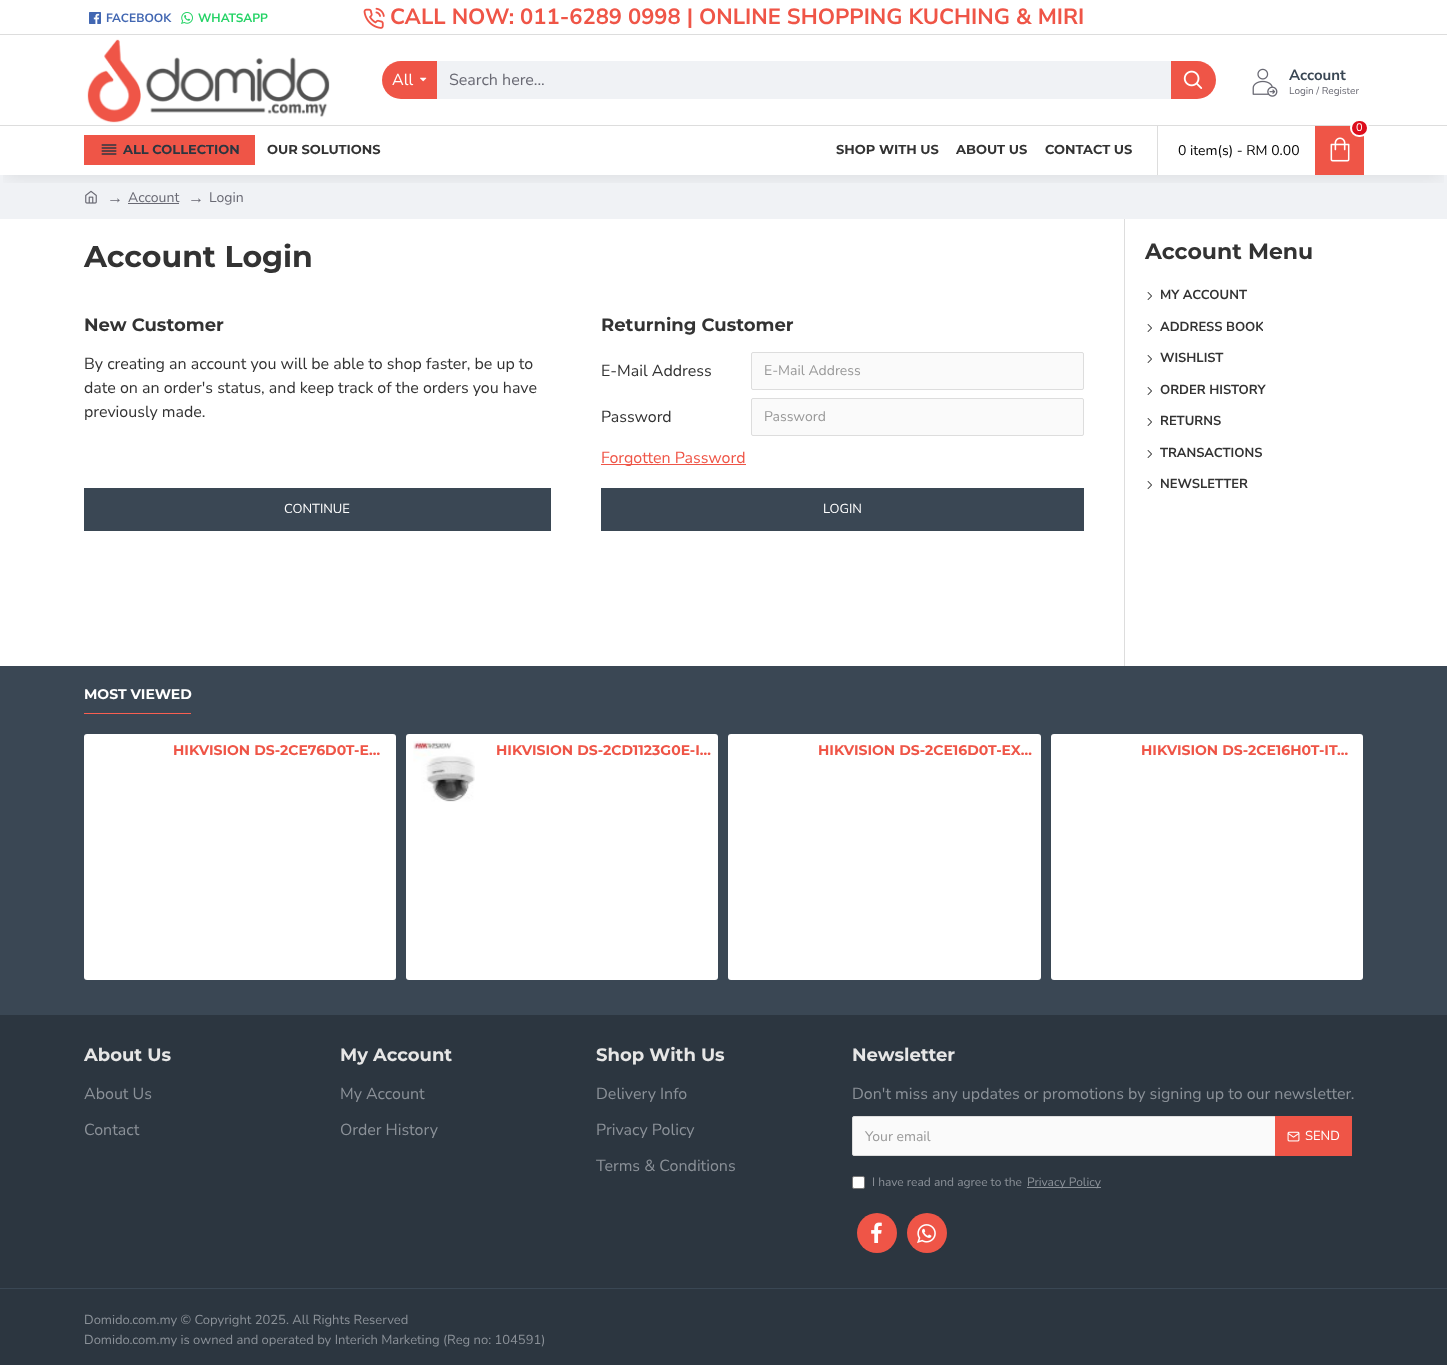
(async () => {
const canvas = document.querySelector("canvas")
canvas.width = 1447
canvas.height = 1365
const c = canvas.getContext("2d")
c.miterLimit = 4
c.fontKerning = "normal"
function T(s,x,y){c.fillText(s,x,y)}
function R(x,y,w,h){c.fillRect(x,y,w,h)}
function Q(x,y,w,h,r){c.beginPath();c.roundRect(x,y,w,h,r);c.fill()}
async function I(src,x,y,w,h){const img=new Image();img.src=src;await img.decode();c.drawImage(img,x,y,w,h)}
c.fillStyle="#fff"
R(0,0,1447,1365)
c.fillStyle="#f0f2f5"
R(0,175,1447,44)
await I("10.png",85,190,12,14)
c.fillStyle="#696973"
R(128,203,51,1)
c.save()
c.beginPath()
c.rect(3,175,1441,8)
c.clip()
c.fillStyle="#0000001a"
c.filter="blur(10px)"
c.beginPath()
c.rect(5,10,1437,165)
c.fill()
c.filter="none"
c.restore()
await I("1.png",89,12,12,12)
c.font="bold 12px Nunito Sans"
c.fillStyle="#4267b2"
T("FACEBOOK",106,22)
await I("2.png",181,12,12,12)
c.fillStyle="#25d366"
T("WHATSAPP",198,22)
await I("3.png",363,7,22,22)
c.font="bold 22px Nunito Sans"
c.fillStyle="#ef5547"
T("CALL NOW: 011-6289 0998 | ONLINE SHOPPING KUCHING & MIRI",390,24)
await I("4.png",87,39,243,84)
c.beginPath()
c.roundRect(382,61,55,38,[19,0,0,19])
c.fill()
c.font="16px Nunito Sans"
c.fillStyle="#fff"
T("All",392,85)
await I("5.png",420,77,7,5)
c.fillStyle="#f0f2f5"
R(437,61,734,38)
c.fillStyle="#696973"
T("Search here...",449,85)
c.fillStyle="#ef5547"
c.beginPath()
c.roundRect(1171,61,45,38,[0,19,19,0])
c.fill()
await I("6.png",1183,70,20,19)
await I("7.png",1252,68,26,29)
c.font="bold 15px Nunito Sans"
c.fillStyle="#3a4754"
T("Account",1289,80)
c.font="10px Nunito Sans"
c.fillStyle="#696973"
T("Login / Register",1289,94)
c.fillStyle="#ddd"
R(0,125,1447,1)
R(1157,125,1,50)
c.fillStyle="#ef5547"
R(1315,126,49,49)
c.fillStyle="#dd0e1c"
c.beginPath()
c.roundRect(1351,120,17,16,8)
c.fill()
c.strokeStyle="#fff"
c.lineWidth=2
c.stroke()
c.font="11px Nunito Sans"
c.fillStyle="#fff"
T("0",1356,131)
c.font="14px Nunito Sans"
c.fillStyle="#000"
T("0 item(s) - RM 0.00",1178,155)
await I("8.png",1330,137,20,25)
c.fillStyle="#ef5547"
R(84,135,171,30)
await I("9.png",101,144,16,11)
c.font="bold 13px Montserrat"
c.fillStyle="#2c3640"
T("ALL COLLECTION",123,154)
c.fillStyle="#333"
T("OUR SOLUTIONS",267,154)
T("SHOP WITH US",836,154)
T("ABOUT US",956,154)
T("CONTACT US",1045,154)
c.fillStyle="#ddd"
R(0,34,1447,1)
c.font="16px Liberation Serif"
c.fillStyle="#696973"
T("→",107,203)
c.font="14px Nunito Sans"
T("Account",128,202)
c.font="16px Liberation Serif"
T("→",188,203)
c.font="14px Nunito Sans"
T("Login",209,202)
c.font="bold 30px Montserrat"
c.fillStyle="#333"
T("Account Login",84,267)
c.font="bold 18px Montserrat"
T("New Customer",84,331)
c.font="16px Nunito Sans"
T("By creating an account you will be able to shop faster, be up to",84,369)
T("date on an order's status, and keep track of the orders you have",84,393)
T("previously made.",84,417)
c.fillStyle="#3a4754"
R(84,488,467,43)
c.font="13px Nunito Sans"
c.fillStyle="#fff"
T("CONTINUE",284,513)
c.font="bold 18px Montserrat"
c.fillStyle="#333"
T("Returning Customer",601,331)
c.font="16px Nunito Sans"
T("E-Mail Address",601,376)
c.fillStyle="#fafafa"
c.beginPath()
c.roundRect(751.5,352.5,332,37,1.5)
c.fill()
c.strokeStyle="#ddd"
c.lineWidth=1
c.stroke()
c.font="14px Nunito Sans"
c.fillStyle="#999"
T("E-Mail Address",764,375)
c.font="16px Nunito Sans"
c.fillStyle="#333"
T("Password",601,422)
c.fillStyle="#fafafa"
c.beginPath()
c.roundRect(751.5,398.5,332,37,1.5)
c.fill()
c.stroke()
c.font="14px Nunito Sans"
c.fillStyle="#999"
T("Password",764,421)
c.fillStyle="#ef5547"
R(601,464,145,1)
c.font="16px Nunito Sans"
T("Forgotten Password",601,463)
c.fillStyle="#3a4754"
R(601,488,483,43)
c.font="13px Nunito Sans"
c.fillStyle="#fff"
T("LOGIN",823,513)
c.fillStyle="#ddd"
R(1124,219,1,447)
c.font="bold 22px Montserrat"
c.fillStyle="#333"
T("Account Menu",1145,259)
await I("11.png",1147,292,5,8)
c.font="bold 13px Nunito Sans"
T("MY ACCOUNT",1160,299)
await I("11.png",1147,324,5,8)
c.save()
c.beginPath()
c.rect(1160,318,103,19)
c.clip()
T("ADDRESS BOOK",1160,331)
c.restore()
await I("11.png",1147,355,5,8)
T("WISHLIST",1160,362)
await I("11.png",1147,387,5,8)
T("ORDER HISTORY",1160,394)
await I("11.png",1147,418,5,8)
T("RETURNS",1160,425)
await I("11.png",1147,450,5,8)
T("TRANSACTIONS",1160,457)
await I("11.png",1147,481,5,8)
T("NEWSLETTER",1160,488)
c.fillStyle="#2c3640"
R(0,1015,1447,350)
c.fillStyle="#3a4754"
R(0,666,1447,349)
c.fillStyle="#f95f51"
R(84,713,107,1)
c.font="bold 14px Montserrat"
c.fillStyle="#fff"
T("MOST VIEWED",84,699)
Q(84,734,312,246,3)
c.fillStyle="#ef5547"
T("HIKVISION DS-2CE76D0T-E…",173,755)
c.fillStyle="#fff"
Q(406,734,312,246,3)
await I("12.png",413,741,62,61)
c.fillStyle="#ef5547"
T("HIKVISION DS-2CD1123G0E-I…",496,755)
c.fillStyle="#fff"
Q(728,734,313,246,3)
c.fillStyle="#ef5547"
T("HIKVISION DS-2CE16D0T-EX…",818,755)
c.fillStyle="#fff"
Q(1051,734,312,246,3)
c.fillStyle="#ef5547"
T("HIKVISION DS-2CE16H0T-IT…",1141,755)
c.font="bold 18px Montserrat"
c.fillStyle="#e6e6e6"
T("About Us",84,1061)
c.font="16px Nunito Sans"
c.fillStyle="#8b9198"
T("About Us",84,1099)
T("Contact",84,1135)
c.font="bold 18px Montserrat"
c.fillStyle="#e6e6e6"
T("My Account",340,1061)
c.font="16px Nunito Sans"
c.fillStyle="#8b9198"
T("My Account",340,1099)
T("Order History",340,1135)
c.font="bold 18px Montserrat"
c.fillStyle="#e6e6e6"
T("Shop With Us",596,1061)
c.font="16px Nunito Sans"
c.fillStyle="#8b9198"
T("Delivery Info",596,1099)
T("Privacy Policy",596,1135)
T("Terms & Conditions",596,1171)
c.font="bold 18px Montserrat"
c.fillStyle="#e6e6e6"
T("Newsletter",852,1061)
c.font="16px Nunito Sans"
c.fillStyle="#8b9198"
T("Don't miss any updates or promotions by signing up to our newsletter.",852,1099)
c.fillStyle="#fafafa"
c.beginPath()
c.roundRect(852.5,1116.5,499,39,1.5)
c.fill()
c.stroke()
c.font="14px Nunito Sans"
c.fillStyle="#999"
T("Your email",865,1141)
c.fillStyle="#ef5547"
R(1275,1116,77,40)
await I("13.png",1287,1131,13,11)
c.font="13px Nunito Sans"
c.fillStyle="#fff"
T("SEND",1305,1140)
c.beginPath()
c.roundRect(852.5,1176.5,12,12,1.5)
c.fill()
c.strokeStyle="#767676"
c.stroke()
c.font="12px Nunito Sans"
c.fillStyle="#8b9198"
T("I have read and agree to the",872,1186)
R(1027,1187,74,1)
T("Privacy Policy",1027,1186)
c.fillStyle="#ef5547"
c.beginPath()
c.arc(877,1233,20,0,7)
c.fill()
await I("14.png",871,1222,11,21)
c.beginPath()
c.arc(927,1233,20,0,7)
c.fill()
await I("15.png",917,1224,19,19)
c.fillStyle="#3a4754"
R(0,1288,1447,1)
c.font="13px Nunito Sans"
c.fillStyle="#8b9198"
T("Domido.com.my © Copyright 2025. All Rights Reserved",84,1324)
T("Domido.com.my is owned and operated by Interich Marketing (Reg no: 104591)",84,1344)
})()
